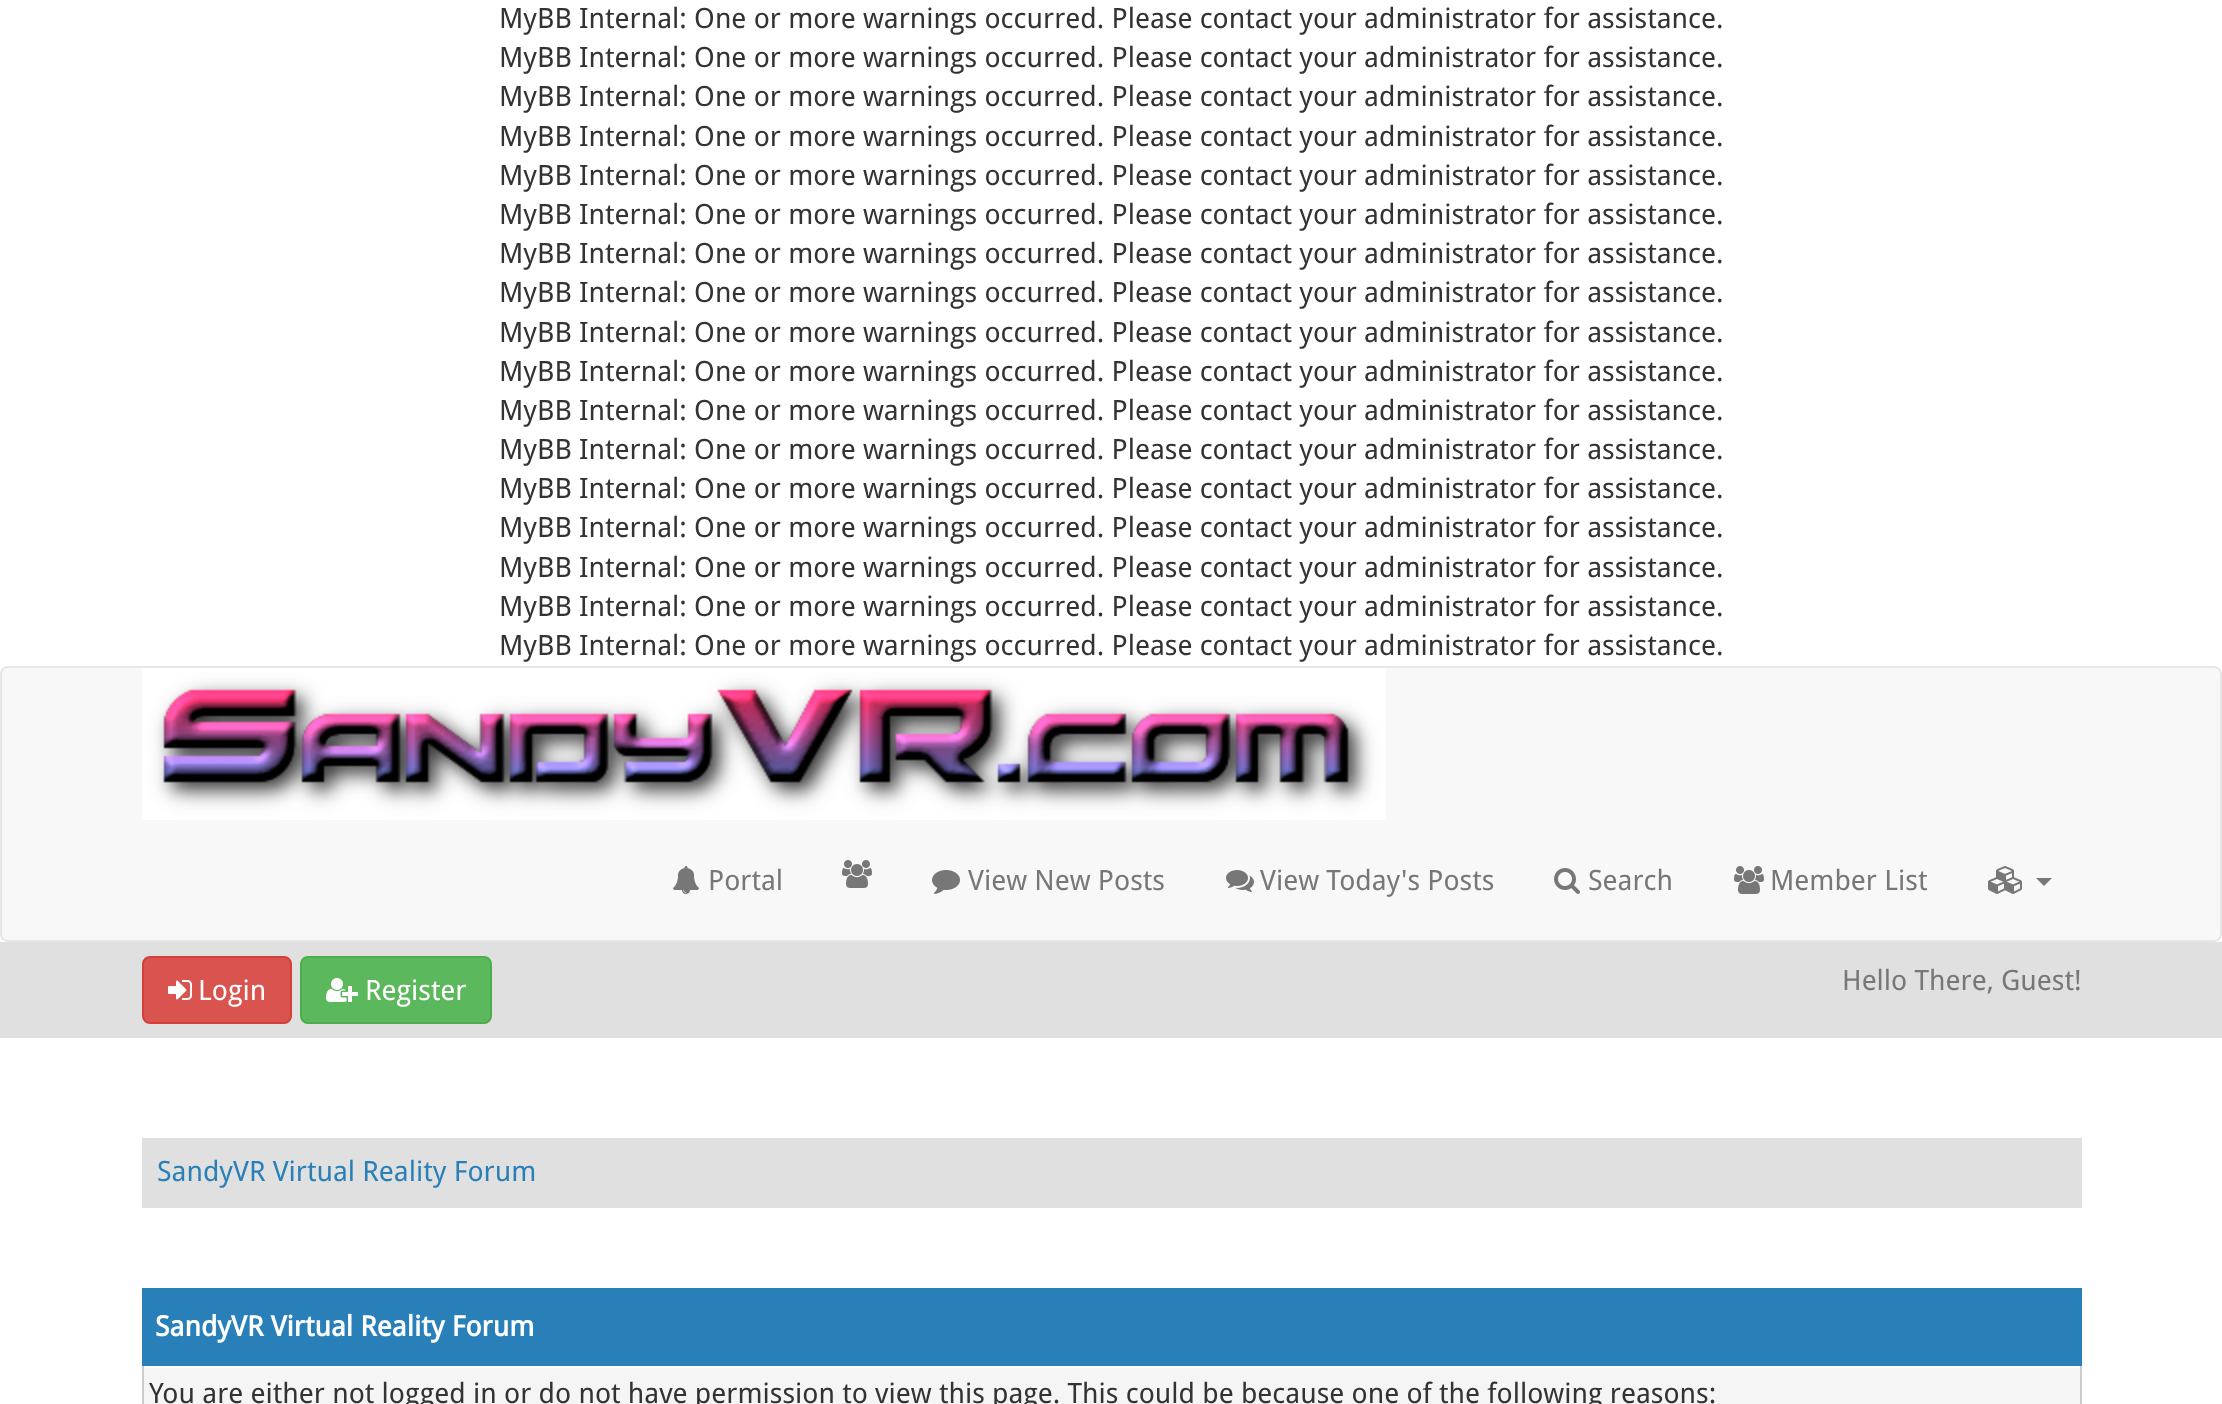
(async () => {
const canvas = document.querySelector("canvas")
canvas.width = 2222
canvas.height = 1404
const c = canvas.getContext("2d")
c.miterLimit = 4
c.fontKerning = "normal"
function T(s,x,y){c.fillText(s,x,y)}
function R(x,y,w,h){c.fillRect(x,y,w,h)}
async function I(src,x,y,w,h){const img=new Image();img.src=src;await img.decode();c.drawImage(img,x,y,w,h)}
let path
c.fillStyle="#fff"
R(0,0,2222,1404)
c.font="28px Droid Sans"
c.fillStyle="#333"
T("MyBB Internal: One or more warnings occurred. Please contact your administrator for assistance.",499,28)
T("MyBB Internal: One or more warnings occurred. Please contact your administrator for assistance.",499,67)
T("MyBB Internal: One or more warnings occurred. Please contact your administrator for assistance.",499,106)
T("MyBB Internal: One or more warnings occurred. Please contact your administrator for assistance.",499,146)
T("MyBB Internal: One or more warnings occurred. Please contact your administrator for assistance.",499,185)
T("MyBB Internal: One or more warnings occurred. Please contact your administrator for assistance.",499,224)
T("MyBB Internal: One or more warnings occurred. Please contact your administrator for assistance.",499,263)
T("MyBB Internal: One or more warnings occurred. Please contact your administrator for assistance.",499,302)
T("MyBB Internal: One or more warnings occurred. Please contact your administrator for assistance.",499,342)
T("MyBB Internal: One or more warnings occurred. Please contact your administrator for assistance.",499,381)
T("MyBB Internal: One or more warnings occurred. Please contact your administrator for assistance.",499,420)
T("MyBB Internal: One or more warnings occurred. Please contact your administrator for assistance.",499,459)
T("MyBB Internal: One or more warnings occurred. Please contact your administrator for assistance.",499,498)
T("MyBB Internal: One or more warnings occurred. Please contact your administrator for assistance.",499,537)
T("MyBB Internal: One or more warnings occurred. Please contact your administrator for assistance.",499,577)
T("MyBB Internal: One or more warnings occurred. Please contact your administrator for assistance.",499,616)
T("MyBB Internal: One or more warnings occurred. Please contact your administrator for assistance.",499,655)
c.fillStyle="#f8f8f8"
c.beginPath()
c.roundRect(1,667,2220,274,7)
c.fill()
c.strokeStyle="#e7e7e7"
c.lineWidth=2
c.stroke()
await I("1.png",142,668,1244,152)
await I("2.png",673,866,26,28)
c.fillStyle="#777"
T("Portal",708,890)
await I("3.png",842,860,30,28)
await I("4.png",932,870,28,24)
T("View New Posts",968,890)
await I("5.png",1226,870,28,22)
T("View Today's Posts",1260,890)
await I("6.png",1554,868,26,26)
T("Search",1588,890)
await I("3.png",1734,866,30,28)
T("Member List",1770,890)
await I("7.png",1988,866,34,28)
path = new Path2D("M2036 878h16l-8 8z")
c.fill(path)
c.fillStyle="#e0e0e0"
R(0,942,2222,96)
c.fillStyle="#d9534f"
c.beginPath()
c.roundRect(143,957,148,66,7)
c.fill()
c.strokeStyle="#d43f3a"
c.stroke()
await I("8.png",168,980,24,20)
c.fillStyle="#fff"
T("Login",198,1000)
c.fillStyle="#5cb85c"
c.beginPath()
c.roundRect(301,957,190,66,7)
c.fill()
c.strokeStyle="#4cae4c"
c.stroke()
await I("9.png",326,978,32,24)
c.fillStyle="#fff"
T("Register",365,1000)
c.fillStyle="#777"
T("Hello There, Guest!",1842,990)
c.fillStyle="#e0e0e0"
R(142,1138,1940,70)
c.fillStyle="#2980b9"
T("SandyVR Virtual Reality Forum",157,1181)
R(142,1288,1940,78)
c.font="bold 28px Droid Sans"
c.fillStyle="#fff"
T("SandyVR Virtual Reality Forum",155,1336)
c.fillStyle="#f5f5f5"
R(144,1368,1936,36)
c.fillStyle="#ccc"
R(2080,1366,2,38)
R(142,1366,2,38)
c.font="28px Droid Sans"
c.fillStyle="#333"
T("You are either not logged in or do not have permission to view this page. This could be because one of the following reasons:",149,1403)
})()
